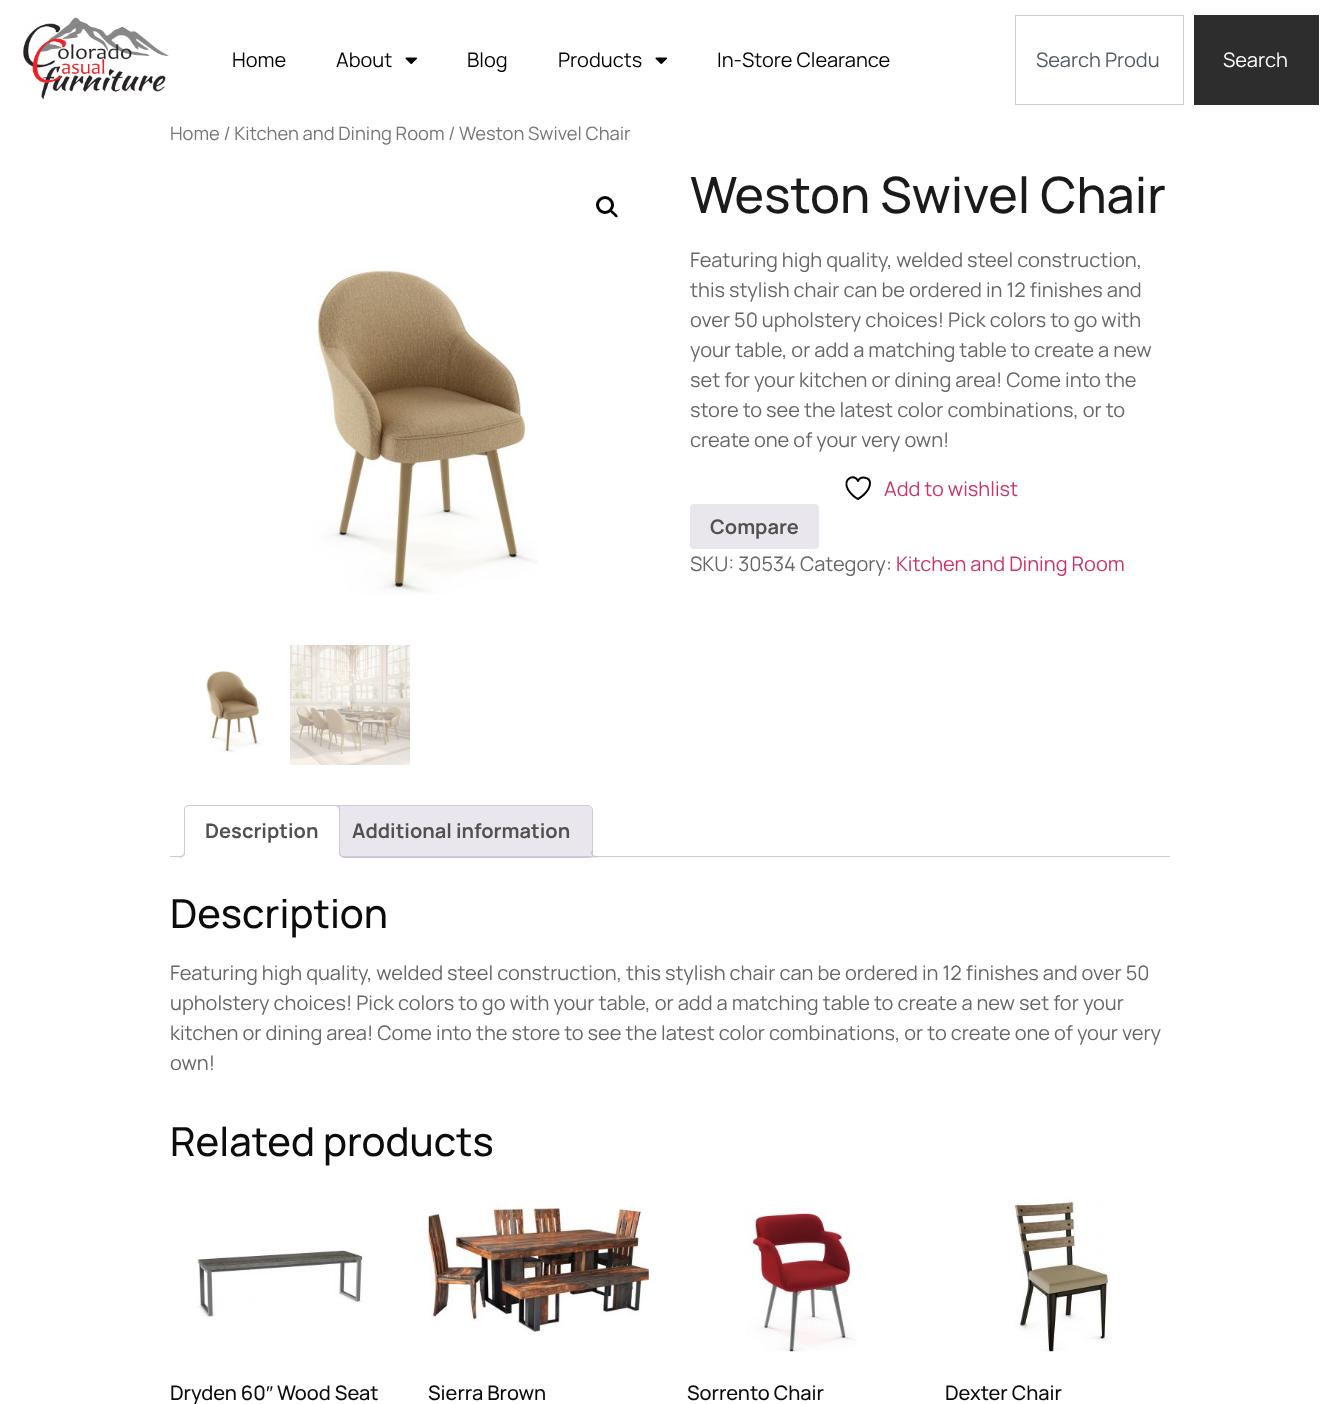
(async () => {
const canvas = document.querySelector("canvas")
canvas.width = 1339
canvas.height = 1404
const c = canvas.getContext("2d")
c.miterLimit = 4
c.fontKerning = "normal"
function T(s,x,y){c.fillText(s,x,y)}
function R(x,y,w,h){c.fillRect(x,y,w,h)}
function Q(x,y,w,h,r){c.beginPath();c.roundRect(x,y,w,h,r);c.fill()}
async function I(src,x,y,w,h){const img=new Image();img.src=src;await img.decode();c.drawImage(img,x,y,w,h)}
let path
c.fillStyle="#fff"
R(0,0,1339,1404)
await I("1.png",23,17,146,82)
c.font="20px Manrope"
c.fillStyle="#000"
T("Home",232,67)
T("About",336,67)
await I("2.png",405,57,12,8)
T("Blog",467,67)
T("Products",558,67)
await I("2.png",655,57,12,8)
T("In-Store Clearance",717,67)
c.strokeStyle="#cdcdcd"
c.strokeRect(1015.5,15.5,168,89)
c.fillStyle="#515962"
T("Search Produ",1036,67)
c.fillStyle="#2d2d2d"
R(1194,15,125,90)
c.fillStyle="#fff"
T("Search",1223,67)
c.font="18.4px Manrope"
c.fillStyle="#767676"
T("Home / Kitchen and Dining Room / Weston Swivel Chair",170,140)
c.beginPath()
c.arc(605,205,7.5,0,7)
c.strokeStyle="#000"
c.lineWidth=3
c.stroke()
c.fillStyle="#000"
path = new Path2D("M610 210c1.5-1.5 4 2 4.5 2.5c1 1 4 3 3 4.5c-1.5 1.5-4-2-4.5-2.5c-1-1-4-3-3-4.5z")
c.fill(path)
await I("3.png",311,267,227,328)
await I("4.png",206,671,56,82)
await I("5.png",290,645,120,120)
c.font="500 50px Manrope"
c.fillStyle="#1a1a1a"
T("Weston Swivel Chair",690,213)
c.font="20px Manrope"
c.fillStyle="#666"
T("Featuring high quality, welded steel construction,",690,267)
T("this stylish chair can be ordered in 12 finishes and",690,297)
T("over 50 upholstery choices! Pick colors to go with",690,327)
T("your table, or add a matching table to create a new",690,357)
T("set for your kitchen or dining area! Come into the",690,387)
T("store to see the latest color combinations, or to",690,417)
T("create one of your very own!",690,447)
path = new Path2D("M870 483c0-6-9.5-7.5-12-2c-3-7.5-16-3-10 8.5c2.5 4 6 7.5 10 9.5c0 0 12-6.5 12-16z")
c.lineWidth=2
c.lineCap="round"
c.lineJoin="round"
c.stroke(path)
c.fillStyle="#c36"
T("Add to wishlist",884,496)
c.fillStyle="#e9e6ed"
Q(690,504,129,45,4)
c.font="bold 20px Manrope"
c.fillStyle="#515151"
T("Compare",710,534)
c.font="20px Manrope"
c.fillStyle="#666"
T("SKU: 30534 Category:",690,571)
c.fillStyle="#c36"
T("Kitchen and Dining Room",896,571)
c.fillStyle="#e9e6ed"
c.beginPath()
c.roundRect(331.5,805.5,261,52,[4.5,4.5,0,0])
c.fill()
c.strokeStyle="#cfc8d8"
c.lineWidth=1
c.lineJoin="miter"
c.stroke()
c.save()
c.beginPath()
c.rect(170,805,1000,53)
c.clip()
path = new Path2D("M589 854c0 4 2 6 6 6v-2.5c-1.5-.5-3-2-3.5-3.5z")
c.fill(path)
c.restore()
c.fillStyle="#cfc8d8"
path = new Path2D("M591 851h6.5v6.5c-3 0-6.5-1.5-6.5-5zm1.5 0h5v5c-2.5 0-5-.5-5-3.5z")
c.fill(path,"evenodd")
R(170,856,1000,1)
c.fillStyle="#fff"
c.beginPath()
c.roundRect(184,805,156,53,[5,5,0,0])
c.fill()
c.fillStyle="#cfc8d8"
path = new Path2D("M189 805c-2 0-3 1-4 2h1l3-1h146l3 1l1-1c-1 0-3-1-4-1z")
c.fill(path)
path = new Path2D("M340 858v-48c0-2 0-3-1-4l-1 1c0 1 1 2 1 3v46h-1z")
c.fill(path)
c.fillStyle="#fff"
path = new Path2D("M340 858h-156l1-2h153z")
c.fill(path)
c.fillStyle="#cfc8d8"
path = new Path2D("M185 807c-1 0-1 2-1 3v47l1-1v-46c0-1 0-2 1-3z")
c.fill(path)
c.font="bold 20px Manrope"
c.fillStyle="#515151"
T("Description",205,838)
c.save()
c.beginPath()
c.rect(170,805,1000,53)
c.clip()
c.fillStyle="#fff"
path = new Path2D("M181 857.5v2.5c4.5 0 7-1 7-6h-3c-1 1.5-2 3-4 3.5z")
c.fill(path)
c.restore()
c.fillStyle="#cfc8d8"
path = new Path2D("M179 851h6c0 4.5-2 6.5-6 6.5zm0 0h5c0 4-1.5 5-5 5z")
c.fill(path,"evenodd")
c.save()
c.beginPath()
c.rect(170,805,1000,53)
c.clip()
c.fillStyle="#fff"
path = new Path2D("M336 854c0 5 2.5 6 7 6v-2.5c-2-.5-3.5-1.5-4-3.5z")
c.fill(path)
c.restore()
path = new Path2D("M339 851h6v6.5c-3 0-6-1.5-6-5zm1 0h5v5c-2.5 0-5-.5-5-3.5z")
c.fill(path,"evenodd")
c.fillStyle="#515151"
T("Additional information",352,838)
c.font="500 40px Manrope"
c.fillStyle="#0c0c0c"
T("Description",170,928)
c.font="20px Manrope"
c.fillStyle="#666"
T("Featuring high quality, welded steel construction, this stylish chair can be ordered in 12 finishes and over 50",170,980)
T("upholstery choices! Pick colors to go with your table, or add a matching table to create a new set for your",170,1010)
T("kitchen or dining area! Come into the store to see the latest color combinations, or to create one of your very",170,1040)
T("own!",170,1070)
c.font="500 40px Manrope"
c.fillStyle="#0c0c0c"
T("Related products",170,1156)
await I("6.png",195,1250,169,68)
c.font="500 20px Manrope"
T("Dryden 60",170,1400)
c.font="20px Liberation Sans"
T("″",266,1400)
c.font="500 20px Manrope"
T("Wood Seat",277,1400)
await I("7.png",428,1204,221,129)
T("Sierra Brown",428,1400)
await I("8.png",746,1208,111,144)
T("Sorrento Chair",687,1400)
await I("9.png",1012,1197,100,155)
T("Dexter Chair",945,1400)
})()
